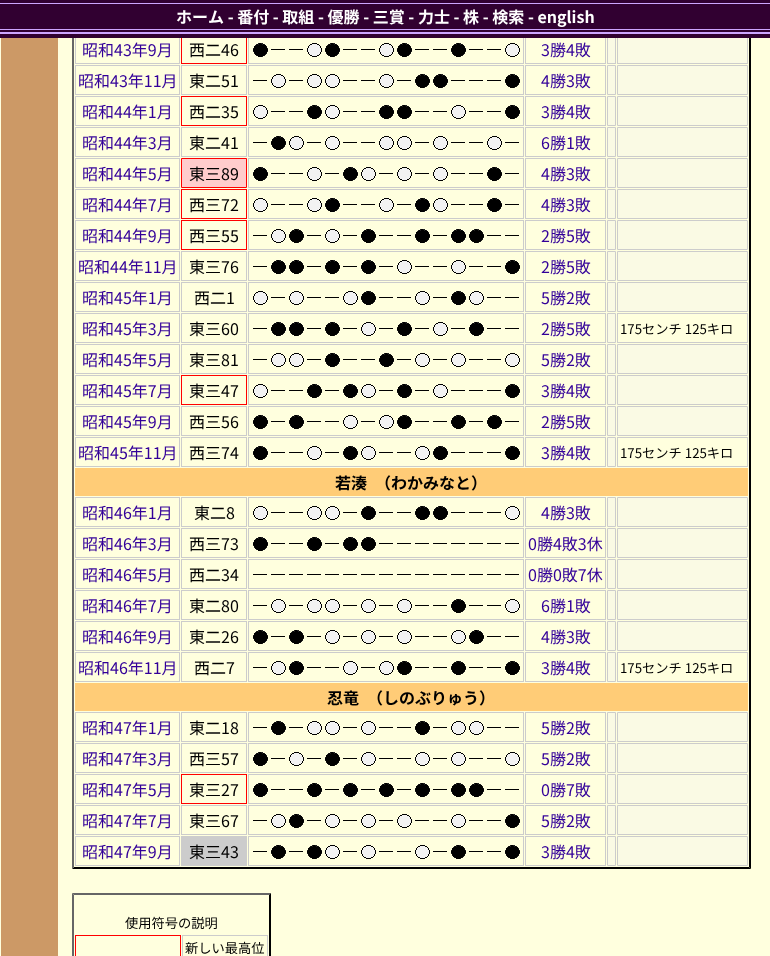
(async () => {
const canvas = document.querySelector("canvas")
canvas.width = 770
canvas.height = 956
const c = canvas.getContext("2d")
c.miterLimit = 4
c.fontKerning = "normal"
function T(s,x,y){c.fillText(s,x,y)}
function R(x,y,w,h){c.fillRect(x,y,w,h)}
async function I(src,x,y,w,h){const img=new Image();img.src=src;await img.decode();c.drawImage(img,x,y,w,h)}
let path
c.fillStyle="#ffffde"
R(0,0,770,956)
c.fillStyle="#000"
path = new Path2D("M751-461v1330l-2-2v-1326z")
c.fill(path)
path = new Path2D("M751 869h-679l2-2h675z")
c.fill(path)
c.fillStyle="#666"
path = new Path2D("M72 869v-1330l2 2v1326z")
c.fill(path)
c.strokeStyle="#ccc"
c.strokeRect(75.5,34.5,104,29)
c.strokeStyle="#f00"
c.strokeRect(181.5,34.5,65,29)
c.strokeStyle="#ccc"
c.strokeRect(248.5,34.5,275,29)
c.strokeRect(525.5,34.5,80,29)
c.fillStyle="#fafae4"
R(608,38,7,25)
c.strokeRect(607.5,34.5,8,29)
R(618,38,129,25)
c.strokeRect(617.5,34.5,130,29)
c.fillStyle="#310031"
R(0,0,770,38)
c.fillStyle="#cda5ff"
R(0,32,770,2)
R(0,3,770,1)
R(0,29,770,1)
c.font="bold 16px Noto Sans CJK JP"
c.fillStyle="#fff"
T("ホーム - 番付 - 取組 - 優勝 - 三賞 - 力士 - 株 - 検索 - english",176,23)
c.fillStyle="#c96"
R(1,38,57,918)
c.font="16px Noto Sans CJK JP"
c.fillStyle="#309"
T("昭和43年9月",82,56)
c.fillStyle="#000"
T("西二46",189,56)
await I("1.png",253,43,15,14)
R(271,49,14,1)
R(289,49,14,1)
await I("2.png",307,43,15,14)
await I("1.png",325,43,15,14)
R(343,49,14,1)
R(361,49,14,1)
await I("2.png",379,43,15,14)
await I("1.png",397,43,15,14)
R(415,49,14,1)
R(433,49,14,1)
await I("1.png",451,43,15,14)
R(469,49,14,1)
R(487,49,14,1)
await I("2.png",505,43,15,14)
c.fillStyle="#309"
T("3勝4敗",541,56)
c.strokeRect(75.5,65.5,104,29)
T("昭和43年11月",78,87)
c.strokeRect(181.5,65.5,65,29)
c.fillStyle="#000"
T("東二51",189,87)
c.strokeRect(248.5,65.5,275,29)
R(253,80,14,1)
await I("2.png",271,74,15,14)
R(289,80,14,1)
await I("2.png",307,74,15,14)
await I("2.png",325,74,15,14)
R(343,80,14,1)
R(361,80,14,1)
await I("2.png",379,74,15,14)
R(397,80,14,1)
await I("1.png",415,74,15,14)
await I("1.png",433,74,15,14)
R(451,80,14,1)
R(469,80,14,1)
R(487,80,14,1)
await I("1.png",505,74,15,14)
c.strokeRect(525.5,65.5,80,29)
c.fillStyle="#309"
T("4勝3敗",541,87)
c.fillStyle="#fafae4"
c.beginPath()
c.rect(607.5,65.5,8,29)
c.fill()
c.stroke()
c.beginPath()
c.rect(617.5,65.5,130,29)
c.fill()
c.stroke()
c.strokeRect(75.5,96.5,104,29)
c.fillStyle="#309"
T("昭和44年1月",82,118)
c.strokeStyle="#f00"
c.strokeRect(181.5,96.5,65,29)
c.fillStyle="#000"
T("西二35",189,118)
c.strokeStyle="#ccc"
c.strokeRect(248.5,96.5,275,29)
await I("2.png",253,105,15,14)
R(271,111,14,1)
R(289,111,14,1)
await I("1.png",307,105,15,14)
await I("2.png",325,105,15,14)
R(343,111,14,1)
R(361,111,14,1)
await I("1.png",379,105,15,14)
await I("1.png",397,105,15,14)
R(415,111,14,1)
R(433,111,14,1)
await I("2.png",451,105,15,14)
R(469,111,14,1)
R(487,111,14,1)
await I("1.png",505,105,15,14)
c.strokeRect(525.5,96.5,80,29)
c.fillStyle="#309"
T("3勝4敗",541,118)
c.fillStyle="#fafae4"
c.beginPath()
c.rect(607.5,96.5,8,29)
c.fill()
c.stroke()
c.beginPath()
c.rect(617.5,96.5,130,29)
c.fill()
c.stroke()
c.strokeRect(75.5,127.5,104,29)
c.fillStyle="#309"
T("昭和44年3月",82,149)
c.strokeRect(181.5,127.5,65,29)
c.fillStyle="#000"
T("東二41",189,149)
c.strokeRect(248.5,127.5,275,29)
R(253,142,14,1)
await I("1.png",271,136,15,14)
await I("2.png",289,136,15,14)
R(307,142,14,1)
await I("2.png",325,136,15,14)
R(343,142,14,1)
R(361,142,14,1)
await I("2.png",379,136,15,14)
await I("2.png",397,136,15,14)
R(415,142,14,1)
await I("2.png",433,136,15,14)
R(451,142,14,1)
R(469,142,14,1)
await I("2.png",487,136,15,14)
R(505,142,14,1)
c.strokeRect(525.5,127.5,80,29)
c.fillStyle="#309"
T("6勝1敗",541,149)
c.fillStyle="#fafae4"
c.beginPath()
c.rect(607.5,127.5,8,29)
c.fill()
c.stroke()
c.beginPath()
c.rect(617.5,127.5,130,29)
c.fill()
c.stroke()
c.strokeRect(75.5,158.5,104,29)
c.fillStyle="#309"
T("昭和44年5月",82,180)
c.fillStyle="#fcc"
c.beginPath()
c.rect(181.5,158.5,65,29)
c.fill()
c.strokeStyle="#f00"
c.stroke()
c.fillStyle="#000"
T("東三89",189,180)
c.strokeStyle="#ccc"
c.strokeRect(248.5,158.5,275,29)
await I("1.png",253,167,15,14)
R(271,173,14,1)
R(289,173,14,1)
await I("2.png",307,167,15,14)
R(325,173,14,1)
await I("1.png",343,167,15,14)
await I("2.png",361,167,15,14)
R(379,173,14,1)
await I("2.png",397,167,15,14)
R(415,173,14,1)
await I("2.png",433,167,15,14)
R(451,173,14,1)
R(469,173,14,1)
await I("1.png",487,167,15,14)
R(505,173,14,1)
c.strokeRect(525.5,158.5,80,29)
c.fillStyle="#309"
T("4勝3敗",541,180)
c.fillStyle="#fafae4"
c.beginPath()
c.rect(607.5,158.5,8,29)
c.fill()
c.stroke()
c.beginPath()
c.rect(617.5,158.5,130,29)
c.fill()
c.stroke()
c.strokeRect(75.5,189.5,104,29)
c.fillStyle="#309"
T("昭和44年7月",82,211)
c.strokeStyle="#f00"
c.strokeRect(181.5,189.5,65,29)
c.fillStyle="#000"
T("西三72",189,211)
c.strokeStyle="#ccc"
c.strokeRect(248.5,189.5,275,29)
await I("2.png",253,198,15,14)
R(271,204,14,1)
R(289,204,14,1)
await I("2.png",307,198,15,14)
await I("1.png",325,198,15,14)
R(343,204,14,1)
R(361,204,14,1)
await I("2.png",379,198,15,14)
R(397,204,14,1)
await I("1.png",415,198,15,14)
await I("2.png",433,198,15,14)
R(451,204,14,1)
R(469,204,14,1)
await I("1.png",487,198,15,14)
R(505,204,14,1)
c.strokeRect(525.5,189.5,80,29)
c.fillStyle="#309"
T("4勝3敗",541,211)
c.fillStyle="#fafae4"
c.beginPath()
c.rect(607.5,189.5,8,29)
c.fill()
c.stroke()
c.beginPath()
c.rect(617.5,189.5,130,29)
c.fill()
c.stroke()
c.strokeRect(75.5,220.5,104,29)
c.fillStyle="#309"
T("昭和44年9月",82,242)
c.strokeStyle="#f00"
c.strokeRect(181.5,220.5,65,29)
c.fillStyle="#000"
T("西三55",189,242)
c.strokeStyle="#ccc"
c.strokeRect(248.5,220.5,275,29)
R(253,235,14,1)
await I("2.png",271,229,15,14)
await I("1.png",289,229,15,14)
R(307,235,14,1)
await I("2.png",325,229,15,14)
R(343,235,14,1)
await I("1.png",361,229,15,14)
R(379,235,14,1)
R(397,235,14,1)
await I("1.png",415,229,15,14)
R(433,235,14,1)
await I("1.png",451,229,15,14)
await I("1.png",469,229,15,14)
R(487,235,14,1)
R(505,235,14,1)
c.strokeRect(525.5,220.5,80,29)
c.fillStyle="#309"
T("2勝5敗",541,242)
c.fillStyle="#fafae4"
c.beginPath()
c.rect(607.5,220.5,8,29)
c.fill()
c.stroke()
c.beginPath()
c.rect(617.5,220.5,130,29)
c.fill()
c.stroke()
c.strokeRect(75.5,251.5,104,29)
c.fillStyle="#309"
T("昭和44年11月",78,273)
c.strokeRect(181.5,251.5,65,29)
c.fillStyle="#000"
T("東三76",189,273)
c.strokeRect(248.5,251.5,275,29)
R(253,266,14,1)
await I("1.png",271,260,15,14)
await I("1.png",289,260,15,14)
R(307,266,14,1)
await I("1.png",325,260,15,14)
R(343,266,14,1)
await I("1.png",361,260,15,14)
R(379,266,14,1)
await I("2.png",397,260,15,14)
R(415,266,14,1)
R(433,266,14,1)
await I("2.png",451,260,15,14)
R(469,266,14,1)
R(487,266,14,1)
await I("1.png",505,260,15,14)
c.strokeRect(525.5,251.5,80,29)
c.fillStyle="#309"
T("2勝5敗",541,273)
c.fillStyle="#fafae4"
c.beginPath()
c.rect(607.5,251.5,8,29)
c.fill()
c.stroke()
c.beginPath()
c.rect(617.5,251.5,130,29)
c.fill()
c.stroke()
c.strokeRect(75.5,282.5,104,29)
c.fillStyle="#309"
T("昭和45年1月",82,304)
c.strokeRect(181.5,282.5,65,29)
c.fillStyle="#000"
T("西二1",194,304)
c.strokeRect(248.5,282.5,275,29)
await I("2.png",253,291,15,14)
R(271,297,14,1)
await I("2.png",289,291,15,14)
R(307,297,14,1)
R(325,297,14,1)
await I("2.png",343,291,15,14)
await I("1.png",361,291,15,14)
R(379,297,14,1)
R(397,297,14,1)
await I("2.png",415,291,15,14)
R(433,297,14,1)
await I("1.png",451,291,15,14)
await I("2.png",469,291,15,14)
R(487,297,14,1)
R(505,297,14,1)
c.strokeRect(525.5,282.5,80,29)
c.fillStyle="#309"
T("5勝2敗",541,304)
c.fillStyle="#fafae4"
c.beginPath()
c.rect(607.5,282.5,8,29)
c.fill()
c.stroke()
c.beginPath()
c.rect(617.5,282.5,130,29)
c.fill()
c.stroke()
c.strokeRect(75.5,313.5,104,29)
c.fillStyle="#309"
T("昭和45年3月",82,335)
c.strokeRect(181.5,313.5,65,29)
c.fillStyle="#000"
T("東三60",189,335)
c.strokeRect(248.5,313.5,275,29)
R(253,328,14,1)
await I("1.png",271,322,15,14)
await I("1.png",289,322,15,14)
R(307,328,14,1)
await I("1.png",325,322,15,14)
R(343,328,14,1)
await I("2.png",361,322,15,14)
R(379,328,14,1)
await I("1.png",397,322,15,14)
R(415,328,14,1)
await I("2.png",433,322,15,14)
R(451,328,14,1)
await I("1.png",469,322,15,14)
R(487,328,14,1)
R(505,328,14,1)
c.strokeRect(525.5,313.5,80,29)
c.fillStyle="#309"
T("2勝5敗",541,335)
c.fillStyle="#fafae4"
c.beginPath()
c.rect(607.5,313.5,8,29)
c.fill()
c.stroke()
c.strokeRect(617.5,313.5,130,29)
c.font="13.25px Noto Sans CJK JP"
c.fillStyle="#000"
T("175センチ 125キロ",620,334)
c.strokeRect(75.5,344.5,104,29)
c.font="16px Noto Sans CJK JP"
c.fillStyle="#309"
T("昭和45年5月",82,366)
c.strokeRect(181.5,344.5,65,29)
c.fillStyle="#000"
T("東三81",189,366)
c.strokeRect(248.5,344.5,275,29)
R(253,359,14,1)
await I("2.png",271,353,15,14)
await I("2.png",289,353,15,14)
R(307,359,14,1)
await I("1.png",325,353,15,14)
R(343,359,14,1)
R(361,359,14,1)
await I("1.png",379,353,15,14)
R(397,359,14,1)
await I("2.png",415,353,15,14)
R(433,359,14,1)
await I("2.png",451,353,15,14)
R(469,359,14,1)
R(487,359,14,1)
await I("2.png",505,353,15,14)
c.strokeRect(525.5,344.5,80,29)
c.fillStyle="#309"
T("5勝2敗",541,366)
c.fillStyle="#fafae4"
c.beginPath()
c.rect(607.5,344.5,8,29)
c.fill()
c.stroke()
c.beginPath()
c.rect(617.5,344.5,130,29)
c.fill()
c.stroke()
c.strokeRect(75.5,375.5,104,29)
c.fillStyle="#309"
T("昭和45年7月",82,397)
c.strokeStyle="#f00"
c.strokeRect(181.5,375.5,65,29)
c.fillStyle="#000"
T("東三47",189,397)
c.strokeStyle="#ccc"
c.strokeRect(248.5,375.5,275,29)
await I("2.png",253,384,15,14)
R(271,390,14,1)
R(289,390,14,1)
await I("1.png",307,384,15,14)
R(325,390,14,1)
await I("1.png",343,384,15,14)
await I("2.png",361,384,15,14)
R(379,390,14,1)
await I("1.png",397,384,15,14)
R(415,390,14,1)
await I("2.png",433,384,15,14)
R(451,390,14,1)
R(469,390,14,1)
R(487,390,14,1)
await I("1.png",505,384,15,14)
c.strokeRect(525.5,375.5,80,29)
c.fillStyle="#309"
T("3勝4敗",541,397)
c.fillStyle="#fafae4"
c.beginPath()
c.rect(607.5,375.5,8,29)
c.fill()
c.stroke()
c.beginPath()
c.rect(617.5,375.5,130,29)
c.fill()
c.stroke()
c.strokeRect(75.5,406.5,104,29)
c.fillStyle="#309"
T("昭和45年9月",82,428)
c.strokeRect(181.5,406.5,65,29)
c.fillStyle="#000"
T("西三56",189,428)
c.strokeRect(248.5,406.5,275,29)
await I("1.png",253,415,15,14)
R(271,421,14,1)
await I("1.png",289,415,15,14)
R(307,421,14,1)
R(325,421,14,1)
await I("2.png",343,415,15,14)
R(361,421,14,1)
await I("2.png",379,415,15,14)
await I("1.png",397,415,15,14)
R(415,421,14,1)
R(433,421,14,1)
await I("1.png",451,415,15,14)
R(469,421,14,1)
await I("1.png",487,415,15,14)
R(505,421,14,1)
c.strokeRect(525.5,406.5,80,29)
c.fillStyle="#309"
T("2勝5敗",541,428)
c.fillStyle="#fafae4"
c.beginPath()
c.rect(607.5,406.5,8,29)
c.fill()
c.stroke()
c.beginPath()
c.rect(617.5,406.5,130,29)
c.fill()
c.stroke()
c.strokeRect(75.5,437.5,104,29)
c.fillStyle="#309"
T("昭和45年11月",78,459)
c.strokeRect(181.5,437.5,65,29)
c.fillStyle="#000"
T("西三74",189,459)
c.strokeRect(248.5,437.5,275,29)
await I("1.png",253,446,15,14)
R(271,452,14,1)
R(289,452,14,1)
await I("2.png",307,446,15,14)
R(325,452,14,1)
await I("1.png",343,446,15,14)
await I("2.png",361,446,15,14)
R(379,452,14,1)
R(397,452,14,1)
await I("2.png",415,446,15,14)
await I("1.png",433,446,15,14)
R(451,452,14,1)
R(469,452,14,1)
R(487,452,14,1)
await I("1.png",505,446,15,14)
c.strokeRect(525.5,437.5,80,29)
c.fillStyle="#309"
T("3勝4敗",541,459)
c.fillStyle="#fafae4"
c.beginPath()
c.rect(607.5,437.5,8,29)
c.fill()
c.stroke()
c.strokeRect(617.5,437.5,130,29)
c.font="13.25px Noto Sans CJK JP"
c.fillStyle="#000"
T("175センチ 125キロ",620,458)
c.fillStyle="#fc7"
R(75,468,673,28)
c.font="bold 16px Noto Sans CJK JP"
c.fillStyle="#000"
T("若湊　（わかみなと）",335,489)
c.strokeRect(75.5,497.5,104,29)
c.font="16px Noto Sans CJK JP"
c.fillStyle="#309"
T("昭和46年1月",82,519)
c.strokeRect(181.5,497.5,65,29)
c.fillStyle="#000"
T("東二8",194,519)
c.strokeRect(248.5,497.5,275,29)
await I("2.png",253,506,15,14)
R(271,512,14,1)
R(289,512,14,1)
await I("2.png",307,506,15,14)
await I("2.png",325,506,15,14)
R(343,512,14,1)
await I("1.png",361,506,15,14)
R(379,512,14,1)
R(397,512,14,1)
await I("1.png",415,506,15,14)
await I("1.png",433,506,15,14)
R(451,512,14,1)
R(469,512,14,1)
R(487,512,14,1)
await I("2.png",505,506,15,14)
c.strokeRect(525.5,497.5,80,29)
c.fillStyle="#309"
T("4勝3敗",541,519)
c.fillStyle="#fafae4"
c.beginPath()
c.rect(607.5,497.5,8,29)
c.fill()
c.stroke()
c.beginPath()
c.rect(617.5,497.5,130,29)
c.fill()
c.stroke()
c.strokeRect(75.5,528.5,104,29)
c.fillStyle="#309"
T("昭和46年3月",82,550)
c.strokeRect(181.5,528.5,65,29)
c.fillStyle="#000"
T("西三73",189,550)
c.strokeRect(248.5,528.5,275,29)
await I("1.png",253,537,15,14)
R(271,543,14,1)
R(289,543,14,1)
await I("1.png",307,537,15,14)
R(325,543,14,1)
await I("1.png",343,537,15,14)
await I("1.png",361,537,15,14)
R(379,543,14,1)
R(397,543,14,1)
R(415,543,14,1)
R(433,543,14,1)
R(451,543,14,1)
R(469,543,14,1)
R(487,543,14,1)
R(505,543,14,1)
c.strokeRect(525.5,528.5,80,29)
c.fillStyle="#309"
T("0勝4敗3休",528,550)
c.fillStyle="#fafae4"
c.beginPath()
c.rect(607.5,528.5,8,29)
c.fill()
c.stroke()
c.beginPath()
c.rect(617.5,528.5,130,29)
c.fill()
c.stroke()
c.strokeRect(75.5,559.5,104,29)
c.fillStyle="#309"
T("昭和46年5月",82,581)
c.strokeRect(181.5,559.5,65,29)
c.fillStyle="#000"
T("西二34",189,581)
c.strokeRect(248.5,559.5,275,29)
R(253,574,14,1)
R(271,574,14,1)
R(289,574,14,1)
R(307,574,14,1)
R(325,574,14,1)
R(343,574,14,1)
R(361,574,14,1)
R(379,574,14,1)
R(397,574,14,1)
R(415,574,14,1)
R(433,574,14,1)
R(451,574,14,1)
R(469,574,14,1)
R(487,574,14,1)
R(505,574,14,1)
c.strokeRect(525.5,559.5,80,29)
c.fillStyle="#309"
T("0勝0敗7休",528,581)
c.fillStyle="#fafae4"
c.beginPath()
c.rect(607.5,559.5,8,29)
c.fill()
c.stroke()
c.beginPath()
c.rect(617.5,559.5,130,29)
c.fill()
c.stroke()
c.strokeRect(75.5,590.5,104,29)
c.fillStyle="#309"
T("昭和46年7月",82,612)
c.strokeRect(181.5,590.5,65,29)
c.fillStyle="#000"
T("東二80",189,612)
c.strokeRect(248.5,590.5,275,29)
R(253,605,14,1)
await I("2.png",271,599,15,14)
R(289,605,14,1)
await I("2.png",307,599,15,14)
await I("2.png",325,599,15,14)
R(343,605,14,1)
await I("2.png",361,599,15,14)
R(379,605,14,1)
await I("2.png",397,599,15,14)
R(415,605,14,1)
R(433,605,14,1)
await I("1.png",451,599,15,14)
R(469,605,14,1)
R(487,605,14,1)
await I("2.png",505,599,15,14)
c.strokeRect(525.5,590.5,80,29)
c.fillStyle="#309"
T("6勝1敗",541,612)
c.fillStyle="#fafae4"
c.beginPath()
c.rect(607.5,590.5,8,29)
c.fill()
c.stroke()
c.beginPath()
c.rect(617.5,590.5,130,29)
c.fill()
c.stroke()
c.strokeRect(75.5,621.5,104,29)
c.fillStyle="#309"
T("昭和46年9月",82,643)
c.strokeRect(181.5,621.5,65,29)
c.fillStyle="#000"
T("東二26",189,643)
c.strokeRect(248.5,621.5,275,29)
await I("1.png",253,630,15,14)
R(271,636,14,1)
await I("1.png",289,630,15,14)
R(307,636,14,1)
await I("2.png",325,630,15,14)
R(343,636,14,1)
await I("2.png",361,630,15,14)
R(379,636,14,1)
await I("2.png",397,630,15,14)
R(415,636,14,1)
R(433,636,14,1)
await I("2.png",451,630,15,14)
await I("1.png",469,630,15,14)
R(487,636,14,1)
R(505,636,14,1)
c.strokeRect(525.5,621.5,80,29)
c.fillStyle="#309"
T("4勝3敗",541,643)
c.fillStyle="#fafae4"
c.beginPath()
c.rect(607.5,621.5,8,29)
c.fill()
c.stroke()
c.beginPath()
c.rect(617.5,621.5,130,29)
c.fill()
c.stroke()
c.strokeRect(75.5,652.5,104,29)
c.fillStyle="#309"
T("昭和46年11月",78,674)
c.strokeRect(181.5,652.5,65,29)
c.fillStyle="#000"
T("西二7",194,674)
c.strokeRect(248.5,652.5,275,29)
R(253,667,14,1)
await I("2.png",271,661,15,14)
await I("1.png",289,661,15,14)
R(307,667,14,1)
R(325,667,14,1)
await I("2.png",343,661,15,14)
R(361,667,14,1)
await I("2.png",379,661,15,14)
await I("1.png",397,661,15,14)
R(415,667,14,1)
R(433,667,14,1)
await I("1.png",451,661,15,14)
R(469,667,14,1)
R(487,667,14,1)
await I("1.png",505,661,15,14)
c.strokeRect(525.5,652.5,80,29)
c.fillStyle="#309"
T("3勝4敗",541,674)
c.fillStyle="#fafae4"
c.beginPath()
c.rect(607.5,652.5,8,29)
c.fill()
c.stroke()
c.strokeRect(617.5,652.5,130,29)
c.font="13.25px Noto Sans CJK JP"
c.fillStyle="#000"
T("175センチ 125キロ",620,673)
c.fillStyle="#fc7"
R(75,683,673,28)
c.font="bold 16px Noto Sans CJK JP"
c.fillStyle="#000"
T("忍竜　（しのぶりゅう）",327,704)
c.strokeRect(75.5,712.5,104,29)
c.font="16px Noto Sans CJK JP"
c.fillStyle="#309"
T("昭和47年1月",82,734)
c.strokeRect(181.5,712.5,65,29)
c.fillStyle="#000"
T("東二18",189,734)
c.strokeRect(248.5,712.5,275,29)
R(253,727,14,1)
await I("1.png",271,721,15,14)
R(289,727,14,1)
await I("2.png",307,721,15,14)
await I("2.png",325,721,15,14)
R(343,727,14,1)
await I("2.png",361,721,15,14)
R(379,727,14,1)
R(397,727,14,1)
await I("1.png",415,721,15,14)
R(433,727,14,1)
await I("2.png",451,721,15,14)
await I("2.png",469,721,15,14)
R(487,727,14,1)
R(505,727,14,1)
c.strokeRect(525.5,712.5,80,29)
c.fillStyle="#309"
T("5勝2敗",541,734)
c.fillStyle="#fafae4"
c.beginPath()
c.rect(607.5,712.5,8,29)
c.fill()
c.stroke()
c.beginPath()
c.rect(617.5,712.5,130,29)
c.fill()
c.stroke()
c.strokeRect(75.5,743.5,104,29)
c.fillStyle="#309"
T("昭和47年3月",82,765)
c.strokeRect(181.5,743.5,65,29)
c.fillStyle="#000"
T("西三57",189,765)
c.strokeRect(248.5,743.5,275,29)
await I("1.png",253,752,15,14)
R(271,758,14,1)
await I("2.png",289,752,15,14)
R(307,758,14,1)
await I("1.png",325,752,15,14)
R(343,758,14,1)
await I("2.png",361,752,15,14)
R(379,758,14,1)
R(397,758,14,1)
await I("2.png",415,752,15,14)
R(433,758,14,1)
await I("2.png",451,752,15,14)
R(469,758,14,1)
R(487,758,14,1)
await I("2.png",505,752,15,14)
c.strokeRect(525.5,743.5,80,29)
c.fillStyle="#309"
T("5勝2敗",541,765)
c.fillStyle="#fafae4"
c.beginPath()
c.rect(607.5,743.5,8,29)
c.fill()
c.stroke()
c.beginPath()
c.rect(617.5,743.5,130,29)
c.fill()
c.stroke()
c.strokeRect(75.5,774.5,104,29)
c.fillStyle="#309"
T("昭和47年5月",82,796)
c.strokeStyle="#f00"
c.strokeRect(181.5,774.5,65,29)
c.fillStyle="#000"
T("東三27",189,796)
c.strokeStyle="#ccc"
c.strokeRect(248.5,774.5,275,29)
await I("1.png",253,783,15,14)
R(271,789,14,1)
R(289,789,14,1)
await I("1.png",307,783,15,14)
R(325,789,14,1)
await I("1.png",343,783,15,14)
R(361,789,14,1)
await I("1.png",379,783,15,14)
R(397,789,14,1)
await I("1.png",415,783,15,14)
R(433,789,14,1)
await I("1.png",451,783,15,14)
await I("1.png",469,783,15,14)
R(487,789,14,1)
R(505,789,14,1)
c.strokeRect(525.5,774.5,80,29)
c.fillStyle="#309"
T("0勝7敗",541,796)
c.fillStyle="#fafae4"
c.beginPath()
c.rect(607.5,774.5,8,29)
c.fill()
c.stroke()
c.beginPath()
c.rect(617.5,774.5,130,29)
c.fill()
c.stroke()
c.strokeRect(75.5,805.5,104,29)
c.fillStyle="#309"
T("昭和47年7月",82,827)
c.strokeRect(181.5,805.5,65,29)
c.fillStyle="#000"
T("東三67",189,827)
c.strokeRect(248.5,805.5,275,29)
R(253,820,14,1)
await I("2.png",271,814,15,14)
await I("1.png",289,814,15,14)
R(307,820,14,1)
await I("2.png",325,814,15,14)
R(343,820,14,1)
await I("2.png",361,814,15,14)
R(379,820,14,1)
await I("2.png",397,814,15,14)
R(415,820,14,1)
R(433,820,14,1)
await I("2.png",451,814,15,14)
R(469,820,14,1)
R(487,820,14,1)
await I("1.png",505,814,15,14)
c.strokeRect(525.5,805.5,80,29)
c.fillStyle="#309"
T("5勝2敗",541,827)
c.fillStyle="#fafae4"
c.beginPath()
c.rect(607.5,805.5,8,29)
c.fill()
c.stroke()
c.beginPath()
c.rect(617.5,805.5,130,29)
c.fill()
c.stroke()
c.strokeRect(75.5,836.5,104,29)
c.fillStyle="#309"
T("昭和47年9月",82,858)
c.fillStyle="#ccc"
R(181,836,66,30)
c.fillStyle="#000"
T("東三43",189,858)
c.strokeRect(248.5,836.5,275,29)
R(253,851,14,1)
await I("1.png",271,845,15,14)
R(289,851,14,1)
await I("1.png",307,845,15,14)
await I("2.png",325,845,15,14)
R(343,851,14,1)
await I("2.png",361,845,15,14)
R(379,851,14,1)
R(397,851,14,1)
await I("2.png",415,845,15,14)
R(433,851,14,1)
await I("1.png",451,845,15,14)
R(469,851,14,1)
R(487,851,14,1)
await I("1.png",505,845,15,14)
c.strokeRect(525.5,836.5,80,29)
c.fillStyle="#309"
T("3勝4敗",541,858)
c.fillStyle="#fafae4"
c.beginPath()
c.rect(607.5,836.5,8,29)
c.fill()
c.stroke()
c.beginPath()
c.rect(617.5,836.5,130,29)
c.fill()
c.stroke()
c.fillStyle="#666"
path = new Path2D("M72 893h199l-2 2h-195z")
c.fill(path)
c.fillStyle="#000"
path = new Path2D("M271 893v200l-2-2v-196z")
c.fill(path)
c.fillStyle="#666"
path = new Path2D("M72 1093v-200l2 2v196z")
c.fill(path)
c.font="13.25px Noto Sans CJK JP"
c.fillStyle="#000"
T("使用符号の説明",125,928)
c.strokeStyle="#f00"
c.strokeRect(75.5,935.5,105,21)
c.strokeStyle="#ccc"
c.strokeRect(182.5,935.5,85,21)
T("新しい最高位",185,953)
})()
